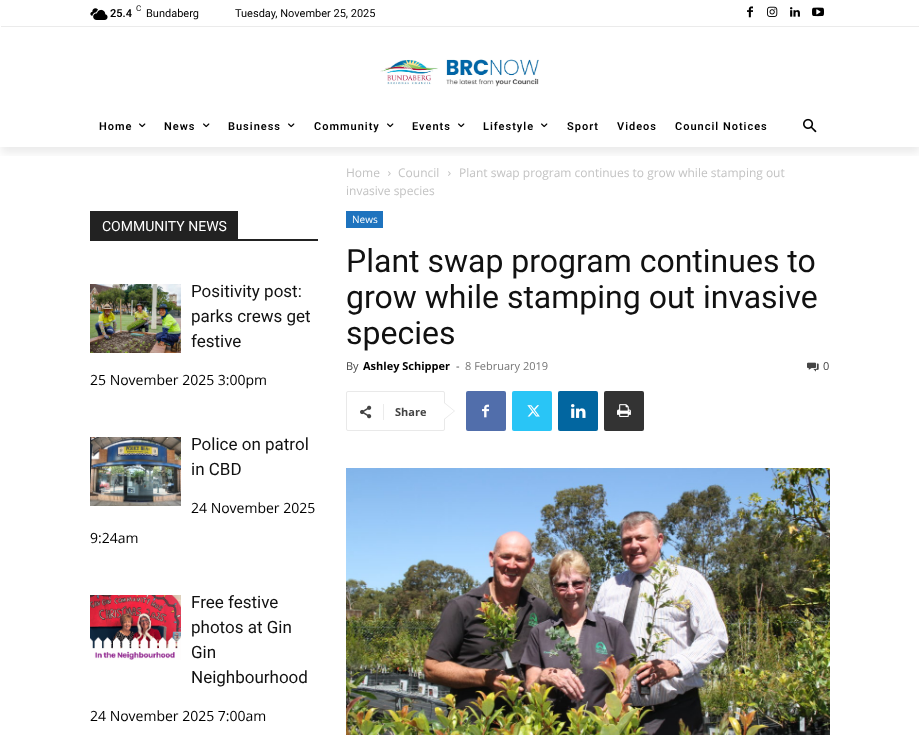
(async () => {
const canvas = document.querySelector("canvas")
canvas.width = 919
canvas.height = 735
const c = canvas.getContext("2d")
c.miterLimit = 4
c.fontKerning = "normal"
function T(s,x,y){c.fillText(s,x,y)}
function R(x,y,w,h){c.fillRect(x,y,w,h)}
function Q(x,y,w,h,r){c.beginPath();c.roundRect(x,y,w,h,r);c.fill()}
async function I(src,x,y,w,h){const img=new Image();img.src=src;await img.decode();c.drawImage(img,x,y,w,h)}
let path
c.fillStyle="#fff"
R(0,0,919,735)
await I("1.png",90,8,18,12)
c.font="600 11px Roboto"
c.fillStyle="#000"
T("25.4",110,17)
c.font="8px Roboto"
T("C",136,11)
c.font="11px Roboto"
T("Bundaberg",146,17)
T("Tuesday, November 25, 2025",235,17)
await I("2.png",747,6,6,12)
await I("3.png",767,6,11,11)
await I("4.png",790,7,10,10)
await I("5.png",812,7,12,10)
c.fillStyle="#ebebeb"
R(1,26,918,1)
await I("6.png",380,59,159,28)
c.save()
c.beginPath()
c.rect(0,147,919,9)
c.clip()
c.fillStyle="#00000014"
c.filter="blur(4px)"
c.beginPath()
c.rect(1,113,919,40)
c.fill()
c.filter="none"
c.restore()
c.letterSpacing="1px"
c.font="600 11px Roboto"
c.fillStyle="#000"
T("Home",99,130)
await I("7.png",139,123,7,5)
T("News",164,130)
await I("7.png",203,123,7,5)
T("Business",228,130)
await I("7.png",288,123,7,5)
T("Community",314,130)
await I("7.png",387,123,7,5)
T("Events",412,130)
await I("7.png",458,123,7,5)
T("Lifestyle",483,130)
await I("7.png",541,123,7,5)
T("Sport",567,130)
T("Videos",617,130)
T("Council Notices",675,130)
await I("8.png",803,118,14,15)
c.letterSpacing="0px"
c.font="12px Open Sans"
c.fillStyle="#c3c3c3"
T("Home",346,177)
await I("9.png",388,171,3,5)
T("Council",398,177)
await I("9.png",448,171,3,5)
T("Plant swap program continues to grow while stamping out",459,177)
T("invasive species",346,195)
c.fillStyle="#222"
R(90,239,228,2)
R(90,211,148,28)
c.font="14px Roboto"
c.fillStyle="#fff"
T("COMMUNITY NEWS",102,231)
await I("10.png",90,284,91,69)
c.font="17px Roboto"
c.fillStyle="#111"
T("Positivity post:",191,297)
T("parks crews get",191,322)
T("festive",191,347)
c.font="14px Open Sans"
c.fillStyle="#000"
T("25 November 2025 3:00pm",90,385)
await I("11.png",90,437,91,69)
c.font="17px Roboto"
c.fillStyle="#111"
T("Police on patrol",191,450)
T("in CBD",191,475)
c.font="14px Open Sans"
c.fillStyle="#000"
T("24 November 2025",191,513)
T("9:24am",90,543)
await I("12.png",90,595,91,65)
c.font="17px Roboto"
c.fillStyle="#111"
T("Free festive",191,608)
T("photos at Gin",191,633)
T("Gin",191,658)
T("Neighbourhood",191,683)
c.font="14px Open Sans"
c.fillStyle="#000"
T("24 November 2025 7:00am",90,721)
c.fillStyle="#1e73be"
R(346,211,37,17)
c.font="10px Open Sans"
c.fillStyle="#fff"
T("News",352,223)
c.font="32px Roboto"
c.fillStyle="#111"
T("Plant swap program continues to",346,272)
T("grow while stamping out invasive",346,308)
T("species",346,344)
c.font="11px Open Sans"
c.fillStyle="#444"
T("By",346,370)
c.font="bold 11px Open Sans"
c.fillStyle="#000"
T("Ashley Schipper",363,370)
c.font="11px Open Sans"
c.fillStyle="#444"
T("-",456,370)
c.fillStyle="#767676"
T("8 February 2019",465,370)
await I("13.png",807,362,12,10)
c.fillStyle="#444"
T("0",823,370)
c.beginPath()
c.roundRect(346.5,391.5,98,39,1.5)
c.strokeStyle="#e9e9e9"
c.stroke()
c.fillStyle="#e9e9e9"
path = new Path2D("M444 420v-18l11 9z")
c.fill(path)
await I("14.png",360,405,12,14)
c.fillStyle="#ebebeb"
R(383,404,1,16)
c.font="bold 11px Open Sans"
c.fillStyle="#444"
T("Share",395,416)
c.fillStyle="#fff"
path = new Path2D("M444 419v-16l10 8z")
c.fill(path)
c.fillStyle="#516eab"
Q(466,391,40,40,2)
await I("15.png",482,404,7,14)
c.fillStyle="#29c5f6"
Q(512,391,40,40,2)
await I("16.png",527,405,13,12)
c.fillStyle="#0266a0"
Q(558,391,40,40,2)
await I("17.png",571,404,15,14)
c.fillStyle="#333"
Q(604,391,40,40,2)
await I("18.png",617,404,14,13)
await I("19.png",346,468,484,267)
})()
